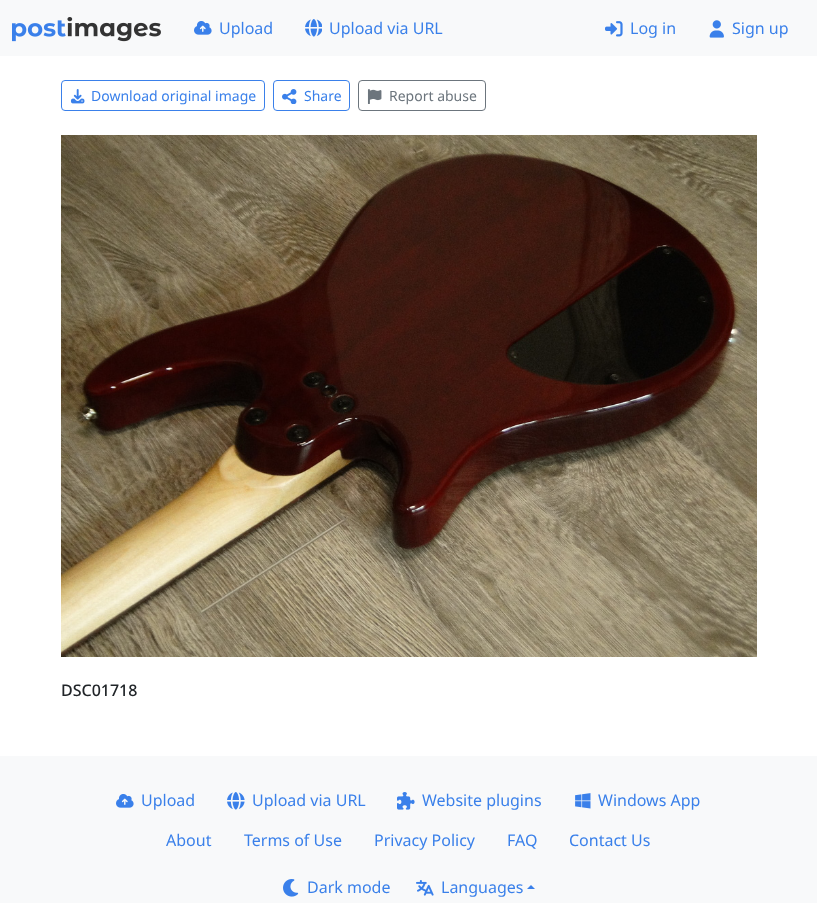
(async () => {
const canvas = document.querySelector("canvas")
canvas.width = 817
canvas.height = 903
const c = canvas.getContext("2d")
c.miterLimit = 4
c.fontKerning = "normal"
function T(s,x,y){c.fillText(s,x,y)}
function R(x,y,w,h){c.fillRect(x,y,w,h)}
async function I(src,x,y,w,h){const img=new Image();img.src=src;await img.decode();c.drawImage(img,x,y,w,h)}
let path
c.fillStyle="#fff"
R(0,0,817,903)
c.fillStyle="#f8f9fa"
R(0,0,817,56)
await I("1.png",12,17,149,25)
await I("2.png",194,21,18,14)
c.font="16px Noto Sans"
c.fillStyle="#3a80ea"
T("Upload",219,34)
await I("3.png",305,19,17,18)
T("Upload via URL",329,34)
await I("4.png",605,21,18,16)
T("Log in",630,34)
await I("5.png",709,20,15,18)
T("Sign up",732,34)
c.beginPath()
c.roundRect(61.5,80.5,203,30,3.5)
c.strokeStyle="#3a80ea"
c.stroke()
await I("6.png",70,89,15,15)
c.font="14px Noto Sans"
T("Download original image",91,101)
c.beginPath()
c.roundRect(273.5,80.5,76,30,3.5)
c.stroke()
await I("7.png",282,89,15,15)
T("Share",304,101)
c.beginPath()
c.roundRect(358.5,80.5,127,30,3.5)
c.strokeStyle="#6c757d"
c.stroke()
await I("8.png",367,89,15,15)
c.fillStyle="#6c757d"
T("Report abuse",389,101)
await I("9.png",61,135,696,522)
c.font="500 16px Noto Sans"
c.fillStyle="#212529"
T("DSC01718",61,696)
c.fillStyle="#f8f9fa"
R(0,756,817,147)
await I("2.png",116,794,18,14)
c.font="16px Noto Sans"
c.fillStyle="#3a80ea"
T("Upload",141,806)
await I("10.png",227,792,18,18)
T("Upload via URL",252,806)
await I("11.png",397,792,18,18)
T("Website plugins",422,806)
await I("12.png",575,793,16,16)
T("Windows App",598,806)
T("About",166,846)
T("Terms of Use",244,846)
T("Privacy Policy",374,846)
T("FAQ",507,846)
T("Contact Us",569,846)
await I("13.png",283,879,16,18)
T("Dark mode",307,893)
await I("14.png",416,880,18,16)
T("Languages",441,893)
path = new Path2D("M535 889h-8l4-4z")
c.fill(path)
})()
